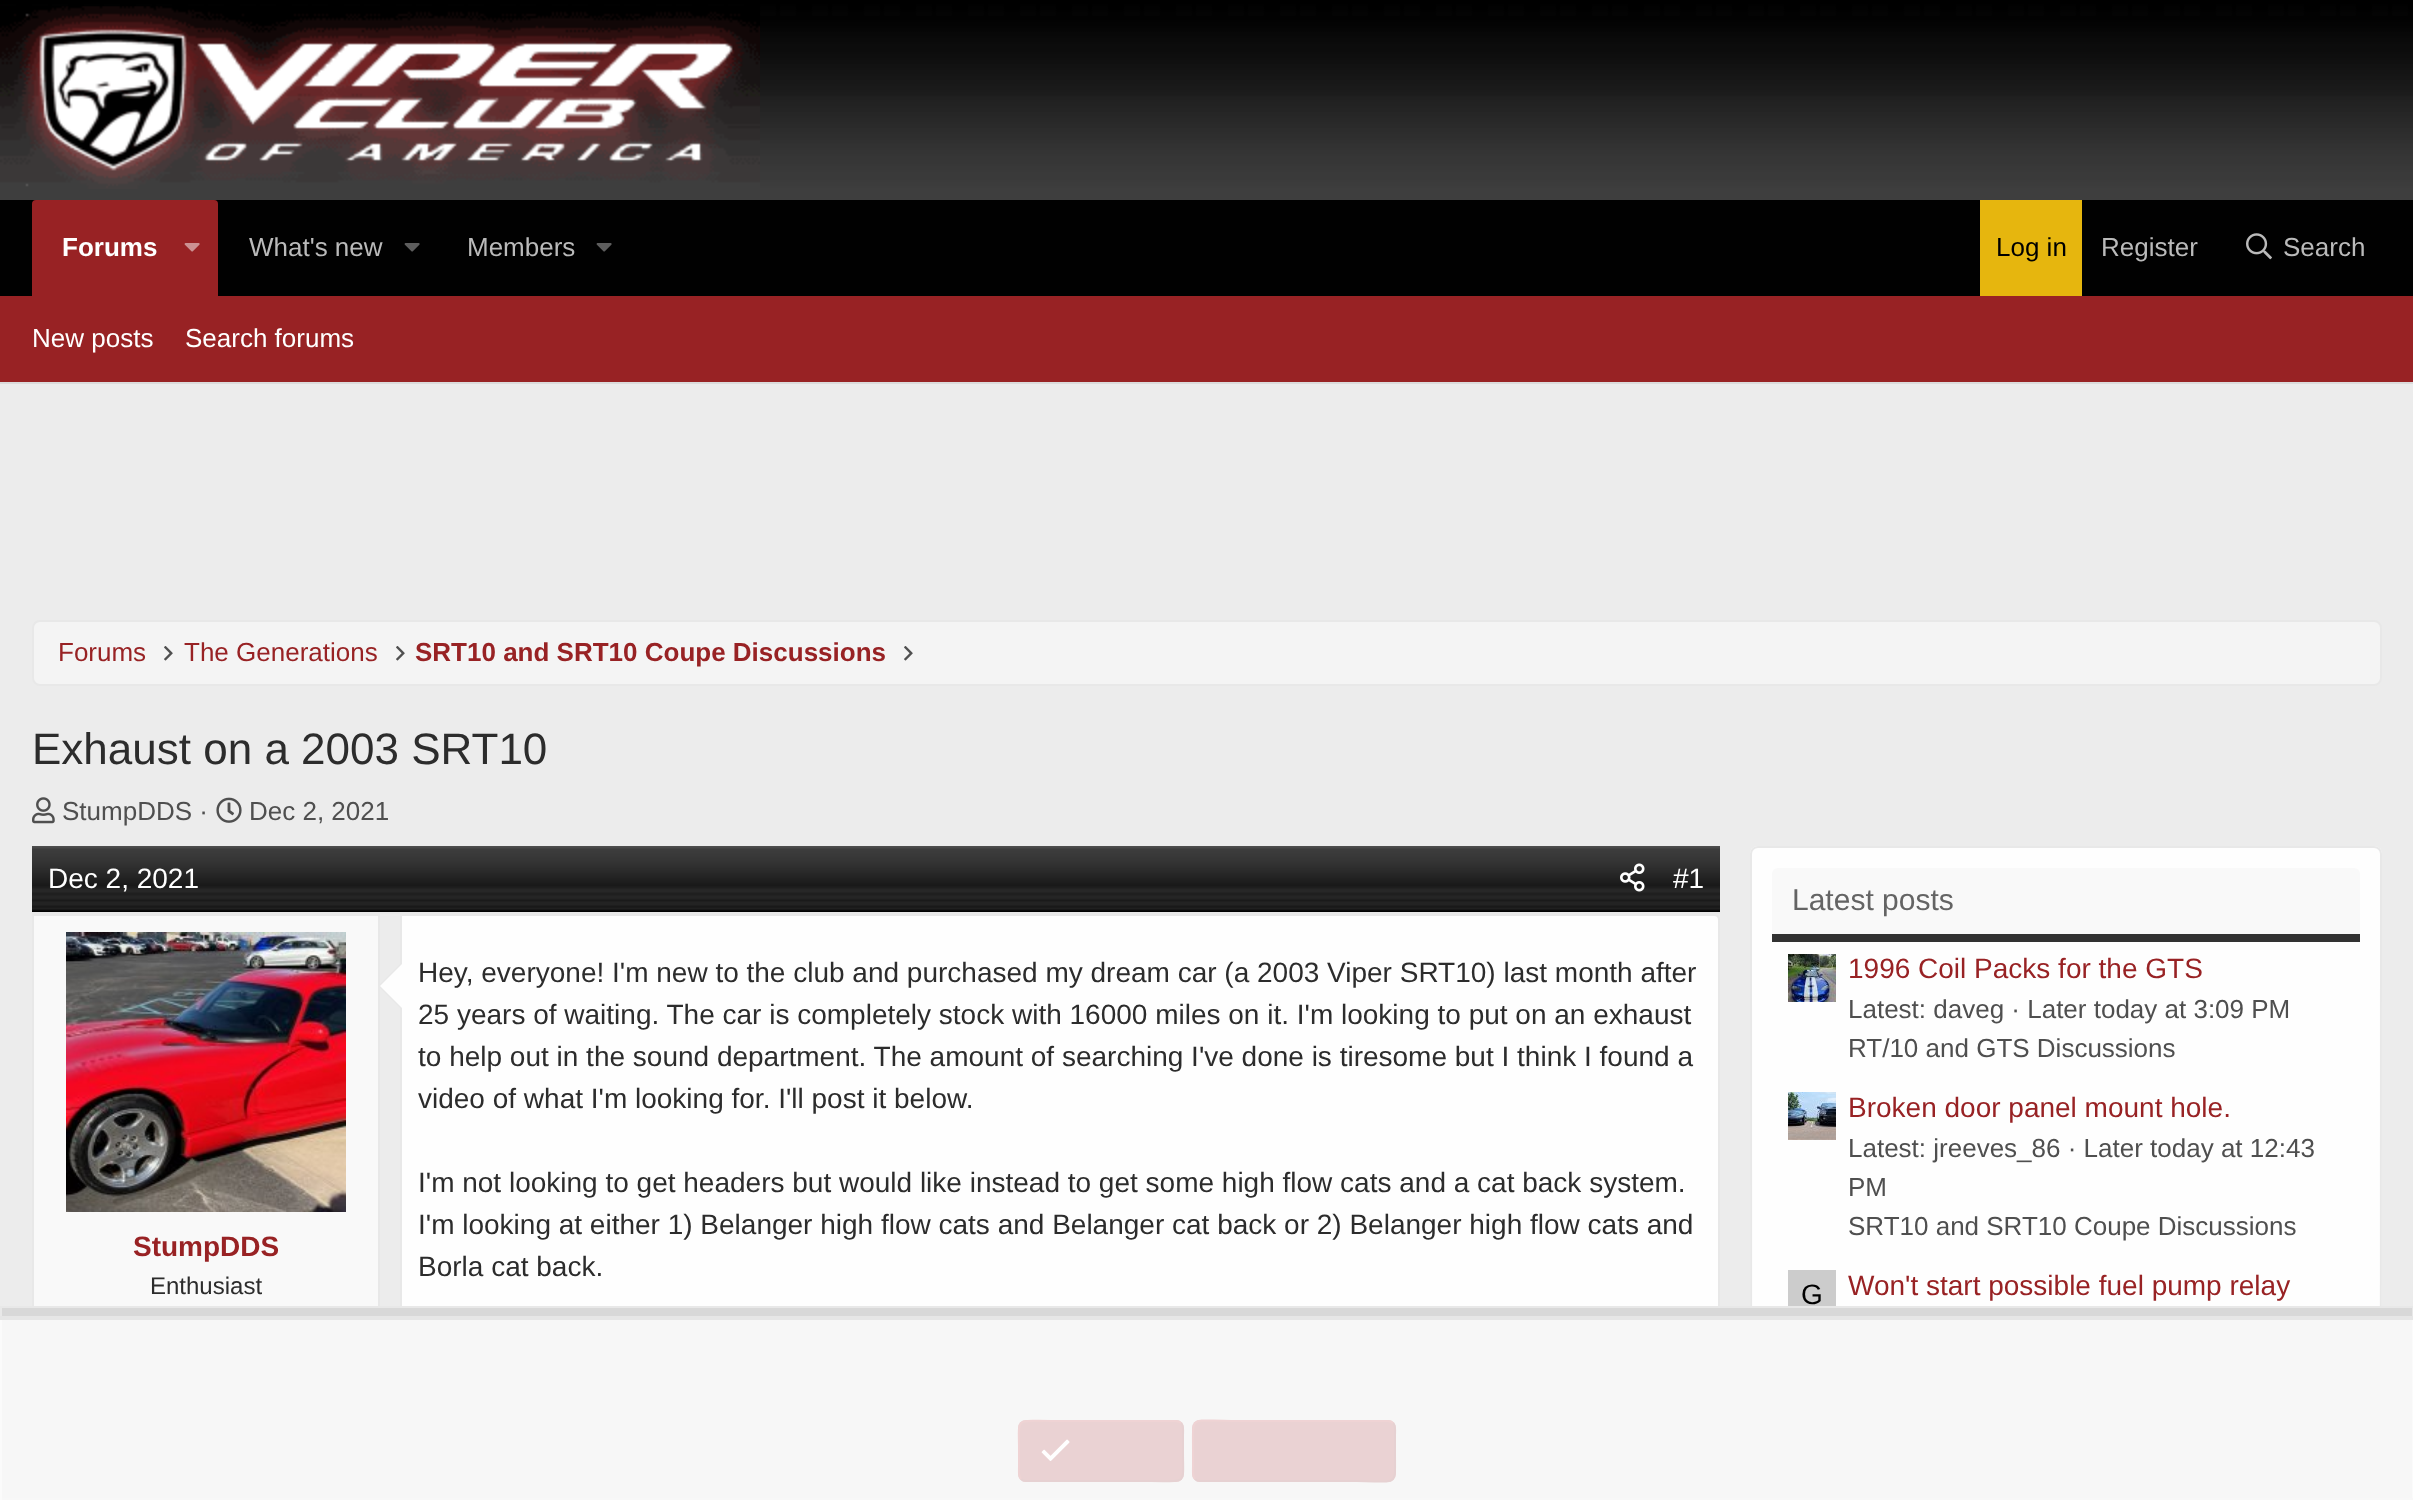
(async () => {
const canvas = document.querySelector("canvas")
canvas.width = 2413
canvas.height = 1500
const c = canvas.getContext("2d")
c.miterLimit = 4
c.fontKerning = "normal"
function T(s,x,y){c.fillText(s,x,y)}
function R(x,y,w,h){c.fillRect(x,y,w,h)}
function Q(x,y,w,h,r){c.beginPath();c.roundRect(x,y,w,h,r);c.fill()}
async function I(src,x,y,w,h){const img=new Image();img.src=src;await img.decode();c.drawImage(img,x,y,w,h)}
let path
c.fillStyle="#ececec"
R(0,0,2413,1500)
await I("1.png",0,0,2413,200)
await I("2.png",0,6,760,183)
c.fillStyle="#010101"
R(0,200,2413,96)
c.fillStyle="#982224"
c.beginPath()
c.roundRect(32,200,186,96,[4,4,0,0])
c.fill()
c.font="bold 26px Liberation Sans"
c.fillStyle="#fff"
T("Forums",62,256)
await I("3.png",184,243,16,9)
c.font="26px Liberation Sans"
c.fillStyle="#bababa"
T("What's new",249,256)
await I("4.png",404,243,16,9)
T("Members",467,256)
await I("4.png",596,243,16,9)
c.fillStyle="#e6b60e"
R(1980,200,102,96)
c.fillStyle="#000"
T("Log in",1996,256)
c.fillStyle="#bababa"
T("Register",2101,256)
await I("5.png",2246,233,26,27)
T("Search",2283,256)
c.fillStyle="#982224"
R(0,296,2413,86)
c.fillStyle="#dbdbdb"
R(0,382,2413,2)
c.fillStyle="#fff"
T("New posts",32,347)
T("Search forums",185,347)
c.fillStyle="#f4f4f4"
c.beginPath()
c.roundRect(33,621,2348,64,7)
c.fill()
c.strokeStyle="#e8e8e8"
c.lineWidth=2
c.stroke()
c.fillStyle="#982224"
T("Forums",58,661)
await I("6.png",164,646,9,15)
T("The Generations",184,661)
await I("6.png",396,646,9,15)
c.font="bold 26px Liberation Sans"
T("SRT10 and SRT10 Coupe Discussions",415,661)
await I("6.png",904,646,9,15)
c.font="44px Liberation Sans"
c.fillStyle="#2c2c2c"
T("Exhaust on a 2003 SRT10",32,764)
await I("7.png",32,797,23,27)
c.font="26px Liberation Sans"
c.fillStyle="#4f4f4f"
T("StumpDDS ·",62,820)
await I("8.png",216,797,26,26)
T("Dec 2, 2021",249,820)
await I("9.png",32,846,1688,66)
c.fillStyle="#e8e8e8"
R(32,912,1688,2)
c.font="28px Liberation Sans"
c.fillStyle="#fff"
T("Dec 2, 2021",48,888)
await I("10.png",1620,863,25,29)
T("#1",1673,888)
c.fillStyle="#f9f9f9"
R(34,916,344,390)
c.strokeRect(33,915,346,578)
await I("11.png",66,932,280,280)
c.fillStyle="#fefefe"
path = new Path2D("M401 915h1313c3 0 5 2 5 5v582c0 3-2 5-5 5h-1313z")
c.fill(path)
c.stroke(path)
c.fillStyle="#e8e8e8"
path = new Path2D("M402 962v48l-24-24z")
c.fill(path)
c.fillStyle="#fefefe"
path = new Path2D("M402 964v44l-22-22z")
c.fill(path)
c.font="bold 28px Liberation Sans"
c.fillStyle="#982224"
T("StumpDDS",133,1256)
c.font="24px Liberation Sans"
c.fillStyle="#2c2c2c"
T("Enthusiast",150,1294)
c.font="28px Liberation Sans"
T("Hey, everyone! I'm new to the club and purchased my dream car (a 2003 Viper SRT10) last month after",418,982)
T("25 years of waiting. The car is completely stock with 16000 miles on it. I'm looking to put on an exhaust",418,1024)
T("to help out in the sound department. The amount of searching I've done is tiresome but I think I found a",418,1066)
T("video of what I'm looking for. I'll post it below.",418,1108)
T("I'm not looking to get headers but would like instead to get some high flow cats and a cat back system.",418,1192)
T("I'm looking at either 1) Belanger high flow cats and Belanger cat back or 2) Belanger high flow cats and",418,1234)
T("Borla cat back.",418,1276)
c.fillStyle="#fefefe"
Q(1750,846,632,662,8)
path = new Path2D("M1753 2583l-1.5-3l-.5-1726c0-4 3-7 7-7h616c4 0 7 3 7 7l-.5 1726l-1.5 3")
c.stroke(path)
c.fillStyle="#f9f9f9"
c.beginPath()
c.roundRect(1772,868,588,74,[6,6,0,0])
c.fill()
c.fillStyle="#323232"
R(1772,934,588,8)
c.font="30px Liberation Sans"
c.fillStyle="#646464"
T("Latest posts",1792,910)
await I("12.png",1788,954,48,48)
c.font="28px Liberation Sans"
c.fillStyle="#982224"
T("1996 Coil Packs for the GTS",1848,978)
c.font="26px Liberation Sans"
c.fillStyle="#4f4f4f"
T("Latest: daveg · Later today at 3:09 PM",1848,1018)
T("RT/10 and GTS Discussions",1848,1057)
await I("13.png",1788,1092,48,48)
c.font="28px Liberation Sans"
c.fillStyle="#982224"
T("Broken door panel mount hole.",1848,1117)
c.font="26px Liberation Sans"
c.fillStyle="#4f4f4f"
T("Latest: jreeves_86 · Later today at 12:43",1848,1157)
T("PM",1848,1196)
T("SRT10 and SRT10 Coupe Discussions",1848,1235)
c.fillStyle="#ccc"
R(1788,1270,48,36)
c.font="28px Liberation Sans"
c.fillStyle="#000"
T("G",1801,1304)
c.fillStyle="#982224"
T("Won't start possible fuel pump relay",1848,1295)
c.fillStyle="#d8d8d8"
R(2,1308,2410,190)
c.fillStyle="#e8e8e8"
R(0,1306,2413,2)
R(2412,1306,1,194)
c.fillStyle="#dbdbdb"
R(0,1498,2413,2)
c.fillStyle="#e8e8e8"
R(0,1306,2,194)
c.fillStyle="#982224"
Q(1018,1420,166,62,8)
path = new Path2D("M1181 1423c3 3 2 9 2 12.5v15.5c0 35 5 30-32 30h-125c-2 0-3.5-.5-5-2")
c.strokeStyle="#831d1f"
c.stroke(path)
path = new Path2D("M1021 1479c-3-3-2-9-2-12.5v-15.5c0-35-5-30 32-30h125c2 0 3.5 .5 5 2")
c.strokeStyle="#ad2729"
c.stroke(path)
await I("14.png",1041,1439,29,22)
Q(1192,1420,204,62,8)
path = new Path2D("M1393 1423c3 3 2 9 2 12.5v15.5c0 37.5 4 30-38.5 30h-156.5c-2 0-3.5-.5-5-2")
c.strokeStyle="#831d1f"
c.stroke(path)
path = new Path2D("M1195 1479c-3-3-2-9-2-12.5v-15.5c0-37.5-4-30 38.5-30h156.5c2 0 3.5 .5 5 2")
c.strokeStyle="#ad2729"
c.stroke(path)
c.fillStyle="#ffffffcc"
R(0,1316,2413,184)
c.fillStyle="#e1e1e1cc"
R(0,1316,2413,4)
})()
